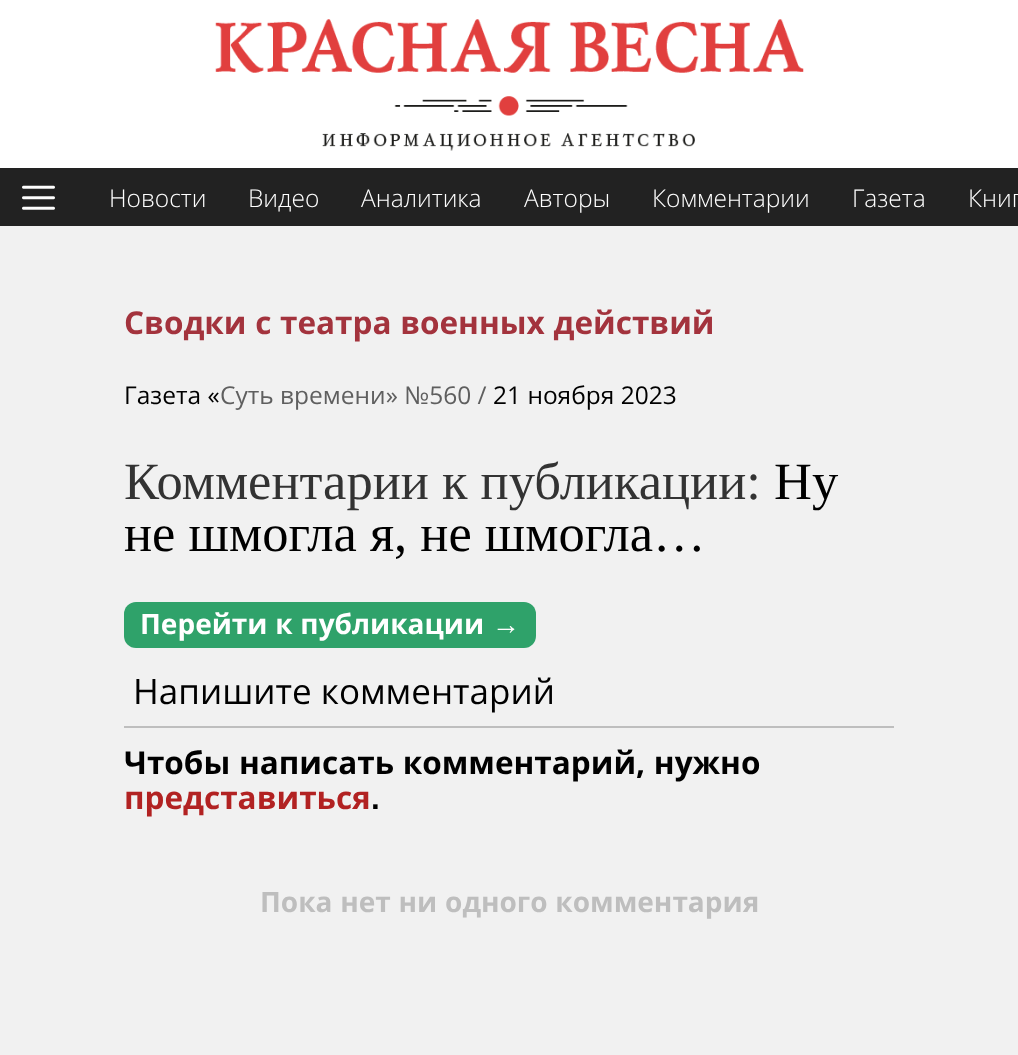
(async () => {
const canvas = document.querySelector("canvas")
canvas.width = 1018
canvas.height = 1055
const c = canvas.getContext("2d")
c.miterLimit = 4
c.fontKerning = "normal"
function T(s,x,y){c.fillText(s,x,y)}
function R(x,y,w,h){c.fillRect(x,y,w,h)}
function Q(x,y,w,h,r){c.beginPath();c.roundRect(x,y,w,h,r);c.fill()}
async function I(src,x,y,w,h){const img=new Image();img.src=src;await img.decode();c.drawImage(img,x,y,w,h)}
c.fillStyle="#f1f1f1"
R(0,0,1018,1055)
c.fillStyle="#fff"
R(0,0,1018,168)
await I("1.png",215,19,589,132)
c.fillStyle="#222"
R(0,168,1018,58)
await I("2.png",22,185,33,25)
c.font="300 24.5px Open Sans"
c.fillStyle="#fff"
T("Новости",109,207)
T("Видео",248,207)
T("Аналитика",361,207)
T("Авторы",524,207)
T("Комментарии",652,207)
T("Газета",852,207)
T("Книг",968,207)
c.wordSpacing="0.5px"
c.font="bold 31.5px Open Sans"
c.fillStyle="#a3333d"
T("Сводки с театра военных действий",124,334)
c.wordSpacing="0px"
c.font="24.5px Open Sans"
c.fillStyle="#000"
T("Газета «",124,404)
c.fillStyle="#5f5f5f"
T("Суть времени» №560 /",220,404)
c.fillStyle="#000"
T("21 ноября 2023",493,404)
c.font="52.5px Liberation Serif"
c.fillStyle="#333"
T("Комментарии к публикации:",124,499)
c.fillStyle="#000"
T("Ну",774,499)
T("не шмогла я, не шмогла…",124,551)
c.fillStyle="#2fa26a"
Q(124,602,412,46,12)
c.wordSpacing="0.5px"
c.font="bold 28px Open Sans"
c.fillStyle="#fff"
T("Перейти к публикации",140,634)
c.wordSpacing="0px"
c.font="bold 28px Liberation Sans"
T("→",492,634)
c.fillStyle="#bebebe"
R(124,726,770,2)
c.font="35px Open Sans"
c.fillStyle="#000"
T("Напишите комментарий",133,704)
c.wordSpacing="0.5px"
c.font="bold 31.5px Open Sans"
T("Чтобы написать комментарий, нужно",124,774)
c.wordSpacing="0px"
c.fillStyle="#b22222"
T("представиться",124,809)
c.font="bold 31.5px Liberation Sans"
c.fillStyle="#000"
T(".",371,809)
c.wordSpacing="0.5px"
c.font="bold 28px Open Sans"
c.fillStyle="#bebebe"
T("Пока нет ни одного комментария",260,912)
})()
